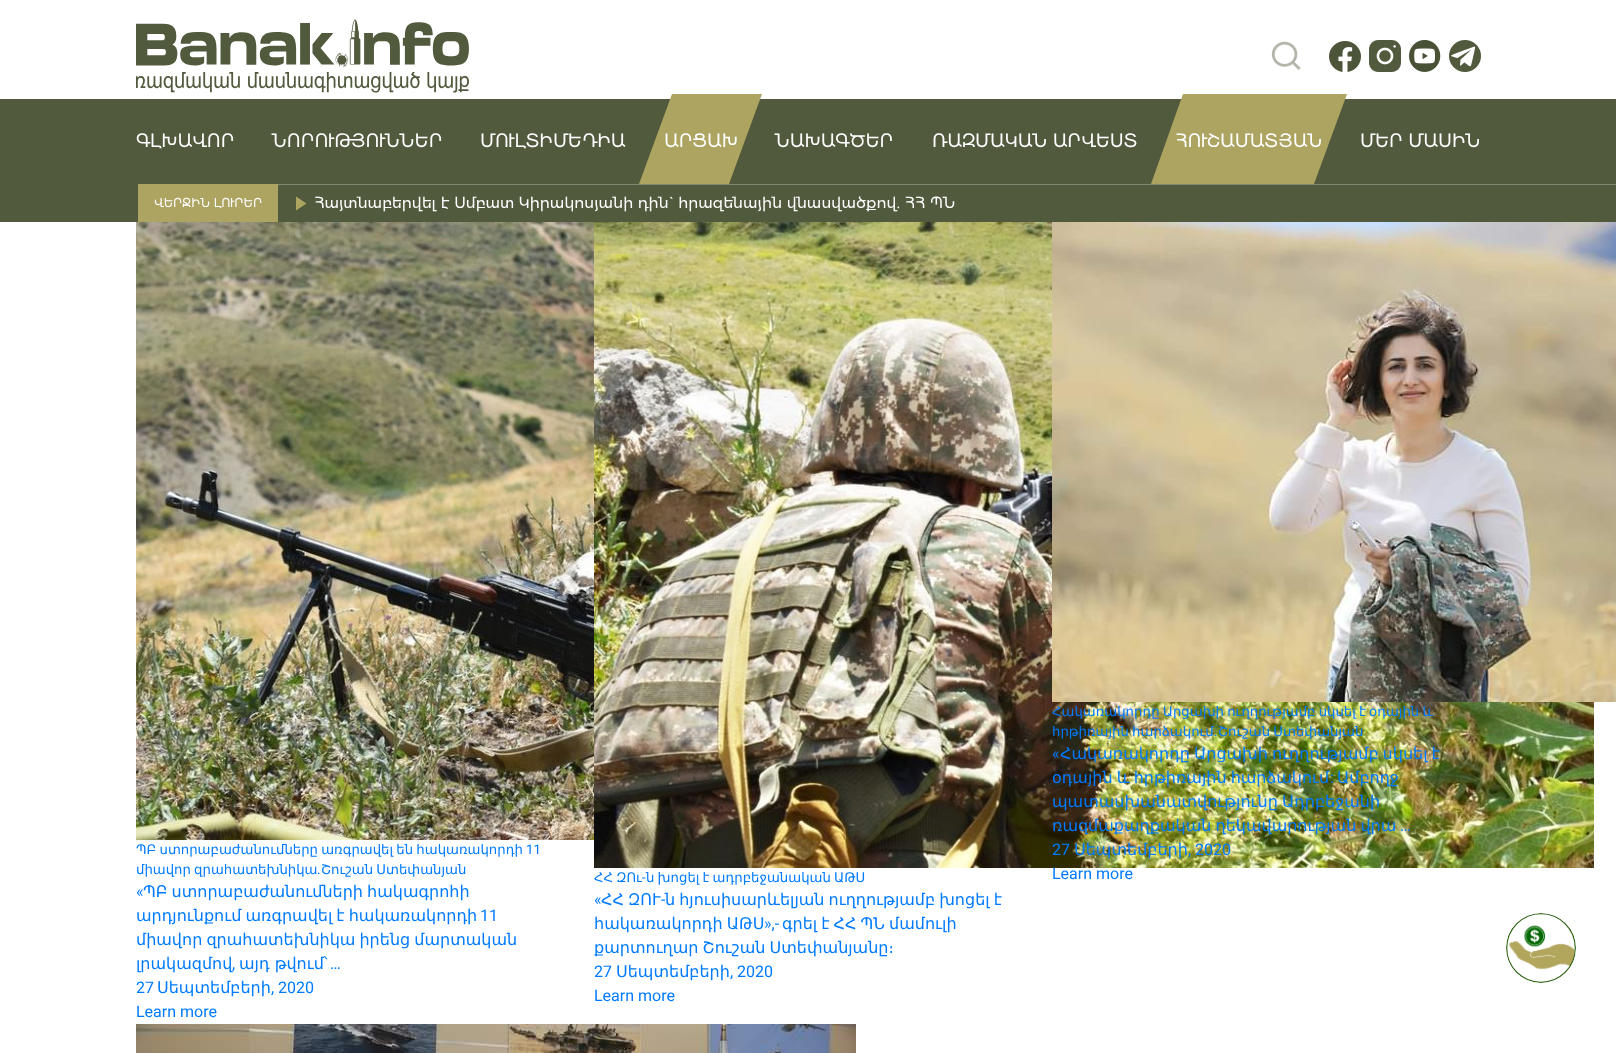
(async () => {
const canvas = document.querySelector("canvas")
canvas.width = 1616
canvas.height = 1053
const c = canvas.getContext("2d")
c.miterLimit = 4
c.fontKerning = "normal"
function T(s,x,y){c.fillText(s,x,y)}
function R(x,y,w,h){c.fillRect(x,y,w,h)}
async function I(src,x,y,w,h){const img=new Image();img.src=src;await img.decode();c.drawImage(img,x,y,w,h)}
let path
c.fillStyle="#fff"
R(0,0,1616,1053)
await I("1.png",136,19,333,74)
await I("2.png",1271,41,30,29)
await I("3.png",1329,41,32,31)
await I("4.png",1369,40,32,32)
await I("5.png",1409,40,32,32)
await I("6.png",1449,40,32,32)
c.fillStyle="#515a3d"
R(0,99,1616,123)
c.font="18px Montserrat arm"
c.fillStyle="#fff"
T("ԳԼԽԱՎՈՐ",136,147)
T("ՆՈՐՈՒԹՅՈՒՆՆԵՐ",272,147)
T("ՄՈՒԼՏԻՄԵԴԻԱ",480,147)
c.fillStyle="#ada461"
path = new Path2D("M672 94h90l-33 90h-90z")
c.fill(path)
c.fillStyle="#fff"
T("ԱՐՑԱԽ",664,147)
T("ՆԱԽԱԳԾԵՐ",775,147)
T("ՌԱԶՄԱԿԱՆ ԱՐՎԵՍՏ",932,147)
c.fillStyle="#ada461"
path = new Path2D("M1183 94h164l-33 90h-163z")
c.fill(path)
c.fillStyle="#fff"
T("ՀՈՒՇԱՄԱՏՅԱՆ",1175,147)
T("ՄԵՐ ՄԱՍԻՆ",1360,147)
c.fillStyle="#ada461"
R(138,184,140,38)
c.font="12px Montserrat arm"
c.fillStyle="#fff"
T("ՎԵՐՋԻՆ ԼՈՒՐԵՐ",154,207)
c.fillStyle="#838975"
R(278,184,1338,1)
c.fillStyle="#ada461"
path = new Path2D("M306.5 203.5l-10.5 7v-14z")
c.fill(path)
c.font="15px Montserrat arm"
c.fillStyle="#fff"
T("Հայտնաբերվել է Սմբատ Կիրակոսյանի դին` հրազենային վնասվածքով. ՀՀ ՊՆ",314,208)
await I("9.png",594,222,1000,646)
await I("7.png",1052,222,564,480)
c.wordSpacing="-1px"
c.font="13.25px DejaVu Sans"
c.fillStyle="#007bff"
T("Հակառակորդը Արցախի ուղղությամբ սկսել է օդային և",1052,716)
T("հրթիռային հարձակում",1052,736)
c.wordSpacing="0px"
c.font="13.25px Roboto"
T(".",1214,736)
c.wordSpacing="-1px"
c.font="13.25px DejaVu Sans"
T("Շուշան Ստեփանյան",1218,736)
c.wordSpacing="0px"
c.font="16px Roboto"
T("«",1052,759)
c.wordSpacing="-1px"
c.font="16px DejaVu Sans"
T("Հակառակորդը Արցախի ուղղությամբ սկսել է",1060,759)
T("օդային և հրթիռային հարձակում",1052,783)
c.wordSpacing="0px"
c.font="16px Roboto"
T(":",1330,783)
c.font="16px DejaVu Sans"
T("Ամբողջ",1337,783)
c.wordSpacing="-1px"
T("պատասխանատվությունը Ադրբեջանի",1052,807)
T("ռազմաքաղքական ղեկավարության վրա",1052,831)
c.wordSpacing="0px"
c.font="16px Roboto"
T("…",1400,831)
T("27",1052,855)
c.font="16px DejaVu Sans"
T("Սեպտեմբերի",1074,855)
c.font="16px Roboto"
T(", 2020",1188,855)
T("Learn more",1052,879)
await I("8.png",136,222,458,618)
c.wordSpacing="-1px"
c.font="13.25px DejaVu Sans"
T("ՊԲ ստորաբաժանումները առգրավել են հակառակորդի",136,854)
c.wordSpacing="0px"
c.font="13.25px Roboto"
T("11",526,854)
c.wordSpacing="-1px"
c.font="13.25px DejaVu Sans"
T("միավոր զրահատեխնիկա",136,874)
c.wordSpacing="0px"
c.font="13.25px Roboto"
T(".",317,874)
c.wordSpacing="-1px"
c.font="13.25px DejaVu Sans"
T("Շուշան Ստեփանյան",321,874)
c.wordSpacing="0px"
c.font="16px Roboto"
T("«",136,897)
c.wordSpacing="-1px"
c.font="16px DejaVu Sans"
T("ՊԲ ստորաբաժանումների հակագրոհի",143,897)
T("արդյունքում առգրավել է հակառակորդի",136,921)
c.wordSpacing="0px"
c.font="16px Roboto"
T("11",480,921)
c.wordSpacing="-1px"
c.font="16px DejaVu Sans"
T("միավոր զրահատեխնիկա իրենց մարտական",136,945)
c.wordSpacing="0px"
T("լրակազմով",136,969)
c.font="16px Roboto"
T(",",232,969)
c.font="16px DejaVu Sans"
T("այդ թվում՝",239,969)
c.font="16px Roboto"
T("…",330,969)
T("27",136,993)
c.font="16px DejaVu Sans"
T("Սեպտեմբերի",157,993)
c.font="16px Roboto"
T(", 2020",271,993)
T("Learn more",136,1017)
c.wordSpacing="-1px"
c.font="13.25px DejaVu Sans"
T("ՀՀ ԶՈւ",594,882)
c.wordSpacing="0px"
c.font="13.25px Roboto"
T("-",642,882)
c.wordSpacing="-1px"
c.font="13.25px DejaVu Sans"
T("ն խոցել է ադրբեջանական ԱԹՍ",646,882)
c.wordSpacing="0px"
c.font="16px Roboto"
T("«",594,905)
c.wordSpacing="-1px"
c.font="16px DejaVu Sans"
T("ՀՀ ԶՈՒ",601,905)
c.wordSpacing="0px"
c.font="16px Roboto"
T("-",661,905)
c.wordSpacing="-1px"
c.font="16px DejaVu Sans"
T("ն հյուսիսարևելյան ուղղությամբ խոցել է",665,905)
T("հակառակորդի ԱԹՍ",594,929)
c.wordSpacing="0px"
c.font="16px Roboto"
T("»,-",764,929)
c.wordSpacing="-1px"
c.font="16px DejaVu Sans"
T("գրել է ՀՀ ՊՆ մամուլի",782,929)
T("քարտուղար Շուշան Ստեփանյանը։",594,953)
c.wordSpacing="0px"
c.font="16px Roboto"
T("27",594,977)
c.font="16px DejaVu Sans"
T("Սեպտեմբերի",616,977)
c.font="16px Roboto"
T(", 2020",730,977)
T("Learn more",594,1001)
await I("10.png",136,1024,720,29)
await I("11.png",1506,913,70,70)
})()
